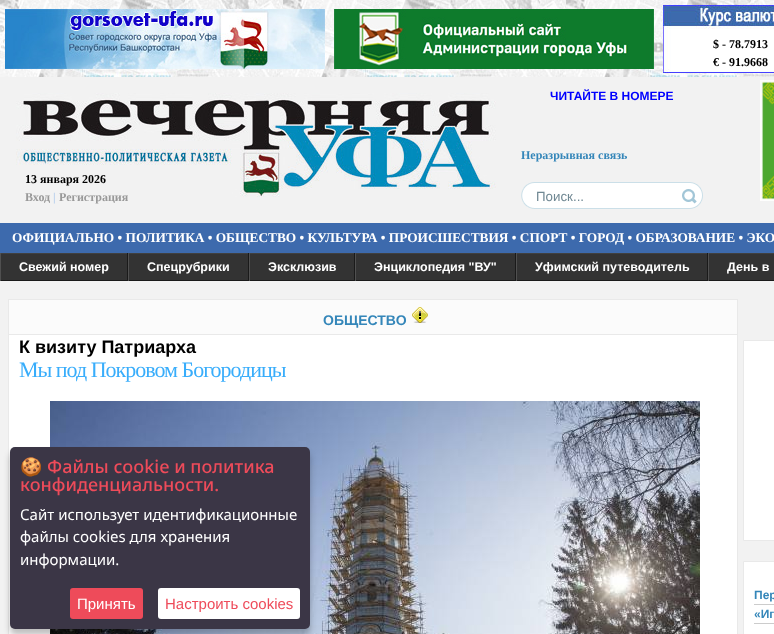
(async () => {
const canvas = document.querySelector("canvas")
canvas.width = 774
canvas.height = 634
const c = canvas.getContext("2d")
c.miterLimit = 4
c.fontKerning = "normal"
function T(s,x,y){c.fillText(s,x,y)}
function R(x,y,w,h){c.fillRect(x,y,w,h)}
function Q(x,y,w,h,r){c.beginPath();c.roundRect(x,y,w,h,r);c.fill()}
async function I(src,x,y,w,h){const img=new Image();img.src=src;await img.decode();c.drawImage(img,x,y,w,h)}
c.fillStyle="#fff"
R(0,0,774,634)
await I("1.png",0,0,774,77)
await I("2.png",5,9,320,60)
await I("3.png",334,9,320,60)
await I("4.png",663,5,111,68)
c.font="bold 12px Liberation Serif"
c.fillStyle="#000"
T("$ - 78.7913",713,48)
T("€ - 91.9668",713,66)
c.fillStyle="#f2f2f2"
R(0,77,502,146)
await I("5.png",16,93,480,104)
c.fillStyle="#000"
T("13 января 2026",25,183)
c.fillStyle="#999"
T("Вход",25,201)
c.fillStyle="#b5ceed"
T("|",53,201)
c.fillStyle="#999"
T("Регистрация",59,201)
c.fillStyle="#f2f2f2"
R(502,77,219,146)
R(721,77,53,146)
await I("6.png",760,80,14,121)
c.font="bold 12px Liberation Sans"
c.fillStyle="#00f"
T("ЧИТАЙТЕ В НОМЕРЕ",550,100)
c.font="bold 12px Liberation Serif"
c.fillStyle="#3486b9"
T("Неразрывная связь",521,159)
await I("7.png",521,182,155,27)
c.font="13.33px Liberation Sans"
c.fillStyle="#708893"
T("Поиск...",536,201)
await I("8.png",676,182,27,27)
c.fillStyle="#3d6aad"
R(0,223,774,30)
c.font="bold 13.33px Liberation Serif"
c.fillStyle="#fff"
T("ОФИЦИАЛЬНО • ПОЛИТИКА • ОБЩЕСТВО • КУЛЬТУРА • ПРОИСШЕСТВИЯ • СПОРТ • ГОРОД • ОБРАЗОВАНИЕ • ЭКО",12,242)
c.fillStyle="#333"
R(1,254,126,26)
c.fillStyle="#404040"
R(0,253,774,1)
c.fillStyle="#1a1a1a"
R(127,253,1,28)
R(0,280,128,1)
c.fillStyle="#505050"
R(0,253,1,28)
c.font="bold 12.5px Liberation Sans"
c.fillStyle="#fff"
T("Свежий номер",19,271)
c.fillStyle="#333"
R(129,254,119,26)
c.fillStyle="#1a1a1a"
R(248,253,1,28)
R(128,280,121,1)
c.fillStyle="#505050"
R(128,253,1,28)
c.fillStyle="#fff"
T("Спецрубрики",147,271)
c.fillStyle="#333"
R(250,254,104,26)
c.fillStyle="#1a1a1a"
R(354,253,1,28)
R(249,280,106,1)
c.fillStyle="#505050"
R(249,253,1,28)
c.fillStyle="#fff"
T("Эксклюзив",268,271)
c.fillStyle="#333"
R(356,254,159,26)
c.fillStyle="#1a1a1a"
R(515,253,1,28)
R(355,280,161,1)
c.fillStyle="#505050"
R(355,253,1,28)
c.fillStyle="#fff"
T("Энциклопедия \"ВУ\"",374,271)
c.fillStyle="#333"
R(517,254,190,26)
c.fillStyle="#1a1a1a"
R(707,253,1,28)
R(516,280,258,1)
c.fillStyle="#505050"
R(516,253,1,28)
c.fillStyle="#fff"
T("Уфимский путеводитель",535,271)
c.fillStyle="#333"
R(709,254,65,26)
c.fillStyle="#505050"
R(708,253,1,28)
c.fillStyle="#fff"
T("День в",727,271)
c.fillStyle="#f2f2f2"
R(0,281,774,353)
c.fillStyle="#fff"
R(9,335,728,299)
c.strokeStyle="#e9e9e9"
c.strokeRect(8.5,299.5,729,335)
c.fillStyle="#fbfbfb"
R(9,300,728,34)
c.fillStyle="#e9e9e9"
R(9,334,728,1)
c.font="bold 14px Liberation Sans"
c.fillStyle="#3486b9"
T("ОБЩЕСТВО",323,325)
await I("9.png",412,307,16,16)
c.font="bold 18px Liberation Sans"
c.fillStyle="#000"
T("К визиту Патриарха",19,353)
c.letterSpacing="-1px"
c.font="22px Liberation Serif"
c.fillStyle="#38adfb"
T("Мы под Покровом Богородицы",19,377)
await I("10.png",50,401,650,233)
c.fillStyle="#fff"
c.beginPath()
c.rect(743.5,340.5,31,200)
c.fill()
c.stroke()
c.beginPath()
c.rect(743.5,561.5,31,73)
c.fill()
c.stroke()
c.fillStyle="#ccc"
R(754,604,20,1)
c.letterSpacing="0px"
c.font="bold 12px Liberation Sans"
c.fillStyle="#3486b9"
T("Пер",754,599)
c.fillStyle="#ccc"
R(754,623,20,1)
c.fillStyle="#3486b9"
T("«Иг",754,618)
c.fillStyle="#00000040"
c.filter="blur(3px)"
c.beginPath()
c.roundRect(10,453,300,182,5)
c.fill()
c.filter="none"
c.fillStyle="#3b3646"
Q(10,447,300,182,5)
c.font="18px Noto Color Emoji"
c.fillStyle="#ee4b5a"
T("🍪",20,473)
c.font="500 18px Noto Sans"
T("Файлы cookie и политика",47,473)
T("конфиденциальности.",20,491)
c.font="15px Noto Sans"
c.fillStyle="#fff"
T("Сайт использует идентификационные",20,520)
T("файлы cookies для хранения",20,542)
T("информации.",20,565)
c.fillStyle="#ee4b5a"
Q(70,588,73,31,3)
c.font="15px Liberation Sans"
c.fillStyle="#fff"
T("Принять",77,609)
Q(158,588,142,31,3)
c.fillStyle="#ee4b5a"
T("Настроить сookies",165,609)
})()
